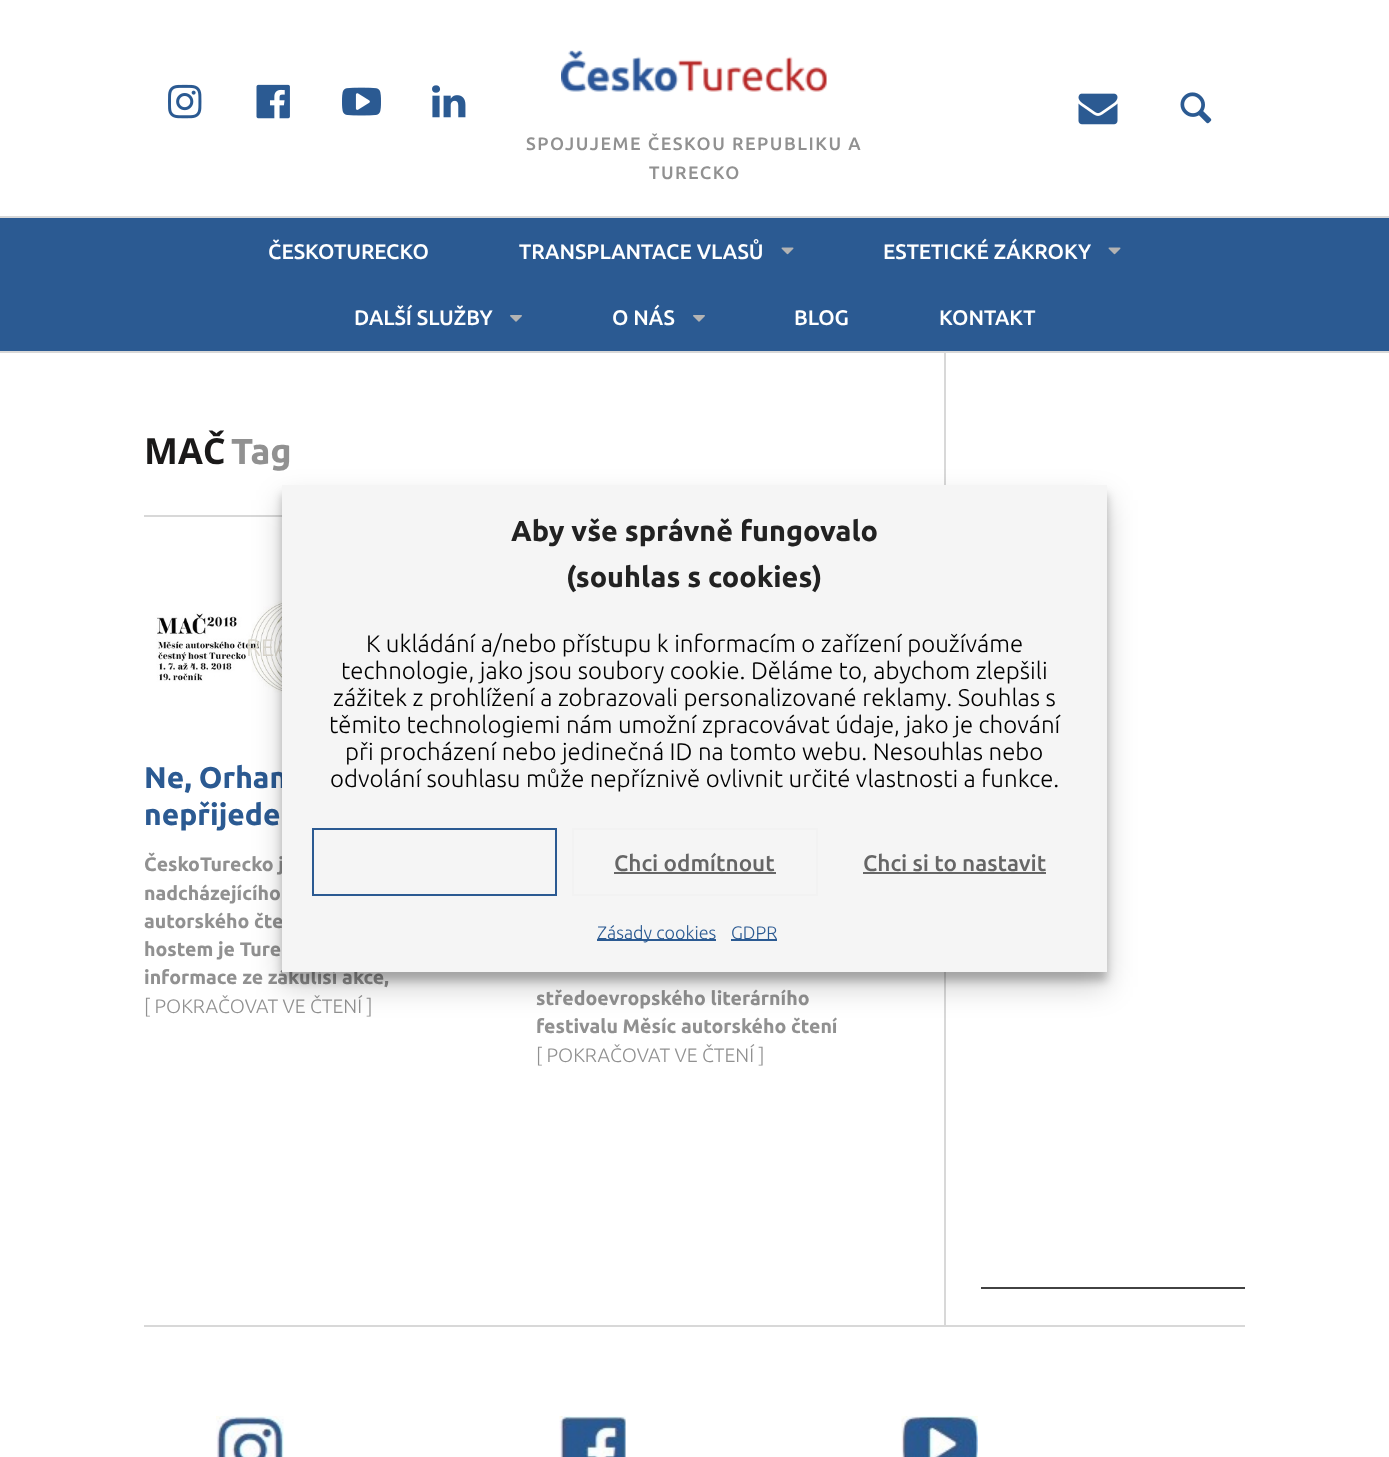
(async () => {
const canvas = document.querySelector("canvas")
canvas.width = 1389
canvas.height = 1457
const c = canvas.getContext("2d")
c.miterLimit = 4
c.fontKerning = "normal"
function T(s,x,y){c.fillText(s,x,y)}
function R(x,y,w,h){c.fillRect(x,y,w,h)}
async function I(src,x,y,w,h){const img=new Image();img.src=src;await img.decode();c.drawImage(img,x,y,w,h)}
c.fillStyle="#fff"
R(0,0,1389,1457)
await I("1.png",168,84,34,35)
await I("2.png",256,84,34,35)
await I("3.png",342,87,39,29)
await I("4.png",432,85,34,33)
await I("5.png",1078,93,40,32)
await I("6.png",1180,92,32,32)
await I("7.png",561,50,266,42)
c.letterSpacing="1.5px"
c.font="500 18px Ubuntu"
c.fillStyle="#919191"
T("SPOJUJEME ČESKOU REPUBLIKU A",526,150)
T("TURECKO",649,179)
c.fillStyle="#2b5a92"
R(0,218,1389,133)
c.fillStyle="#d8d8d8"
R(0,216,1389,2)
R(944,351,2,974)
R(0,351,1389,2)
c.letterSpacing="0px"
c.font="500 21px Ubuntu"
c.fillStyle="#fff"
T("ČESKOTURECKO",268,259)
T("TRANSPLANTACE VLASŮ",519,259)
await I("8.png",781,247,13,8)
T("ESTETICKÉ ZÁKROKY",883,259)
await I("8.png",1108,247,13,8)
T("DALŠÍ SLUŽBY",354,325)
await I("9.png",510,315,12,7)
T("O NÁS",612,325)
await I("9.png",693,315,12,7)
T("BLOG",794,325)
T("KONTAKT",939,325)
c.fillStyle="#d8d8d8"
R(144,1325,1101,2)
c.font="bold 36px Open Sans"
c.fillStyle="#1a1919"
T("MAČ",144,464)
c.font="bold 36px Ubuntu"
c.fillStyle="#919191"
T("Tag",231,464)
c.fillStyle="#d8d8d8"
R(144,515,138,2)
await I("10.png",156,598,126,99)
c.font="300 24px Ubuntu"
c.fillStyle="#dcd8ce"
T("REA",246,656)
c.font="bold 30px Ubuntu"
c.fillStyle="#2b5a92"
T("Ne, Orhan",144,788)
T("nepřijede",144,825)
c.font="bold 19.5px Ubuntu"
c.fillStyle="#919191"
T("ČeskoTurecko j",144,871)
T("nadcházejícího",144,900)
T("autorského čte",144,928)
T("hostem je Ture",144,956)
T("informace ze zákulisí akce,",144,984)
c.font="300 19.5px Ubuntu"
T("[ POKRAČOVAT VE ČTENÍ ]",144,1013)
c.font="bold 19.5px Ubuntu"
T("středoevropského literárního",536,1005)
T("festivalu Měsíc autorského čtení",536,1033)
c.font="300 19.5px Ubuntu"
T("[ POKRAČOVAT VE ČTENÍ ]",536,1062)
c.fillStyle="#424242"
R(981,1287,264,2)
await I("11.png",216,1416,68,41)
await I("12.png",559,1416,67,41)
await I("13.png",901,1416,77,41)
c.fillStyle="#0000003b"
c.filter="blur(4.5px)"
c.beginPath()
c.rect(282,494,825,487)
c.fill()
c.filter="none"
c.fillStyle="#00000030"
c.filter="blur(15px)"
c.beginPath()
c.rect(282,500,825,487)
c.fill()
c.filter="none"
c.fillStyle="#f5f5f5"
R(282,485,825,487)
c.font="bold 28.75px Ubuntu"
c.fillStyle="#222"
T("Aby vše správně fungovalo",511,541)
T("(souhlas s cookies)",566,587)
c.font="300 24px Ubuntu"
c.fillStyle="#000"
T("K ukládání a/nebo přístupu k informacím o zařízení používáme",366,652)
T("technologie, jako jsou soubory cookie. Děláme to, abychom zlepšili",341,679)
T("zážitek z prohlížení a zobrazovali personalizované reklamy. Souhlas s",333,706)
T("těmito technologiemi nám umožní zpracovávat údaje, jako je chování",329,733)
T("při procházení nebo jedinečná ID na tomto webu. Nesouhlas nebo",345,760)
T("odvolání souhlasu může nepříznivě ovlivnit určité vlastnosti a funkce.",330,787)
c.strokeStyle="#2b5a92"
c.lineWidth=2
c.strokeRect(313,829,243,66)
c.strokeStyle="#f2f2f2"
c.strokeRect(573,829,244,66)
c.font="500 22.5px Ubuntu"
c.fillStyle="#666"
T("Chci odmítnout",614,871)
R(614,872,162,2)
T("Chci si to nastavit",863,871)
R(863,872,183,2)
c.fillStyle="#2b5a92"
R(597,939,119,2)
c.font="300 18px Ubuntu"
T("Zásady cookies",597,939)
R(731,939,46,2)
T("GDPR",731,939)
})()
